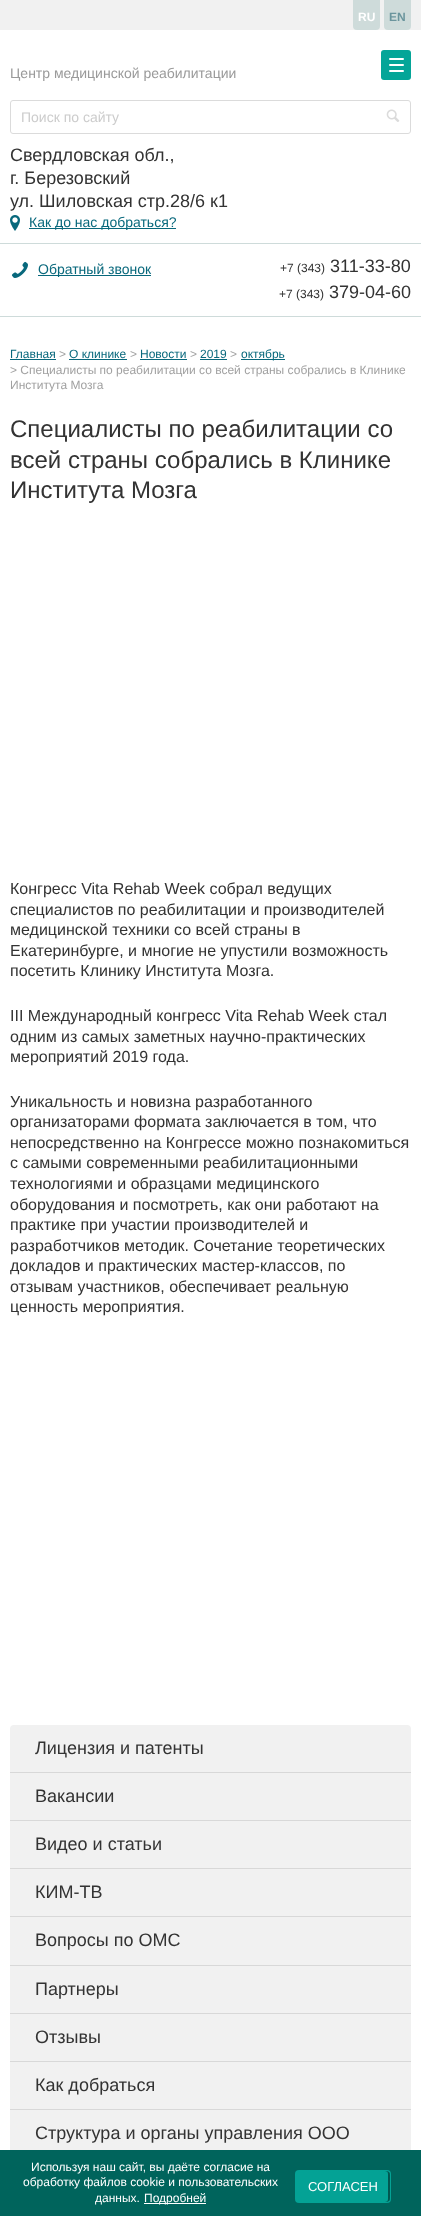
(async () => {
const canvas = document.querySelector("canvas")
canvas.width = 421
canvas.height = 2216
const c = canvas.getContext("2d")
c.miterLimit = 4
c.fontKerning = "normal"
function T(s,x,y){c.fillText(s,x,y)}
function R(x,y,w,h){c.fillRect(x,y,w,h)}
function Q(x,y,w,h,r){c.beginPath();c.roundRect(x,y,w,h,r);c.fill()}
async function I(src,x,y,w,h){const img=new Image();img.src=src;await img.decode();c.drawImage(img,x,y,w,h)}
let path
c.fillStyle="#fff"
R(0,0,421,2216)
c.fillStyle="#f1f1f1"
R(0,0,421,30)
c.fillStyle="#cedbda"
c.beginPath()
c.roundRect(353,0,27,30,[0,0,4,4])
c.fill()
c.font="bold 12px Liberation Sans"
c.fillStyle="#fff"
T("RU",358,21)
c.fillStyle="#cedbda"
c.beginPath()
c.roundRect(384,0,27,30,[0,0,4,4])
c.fill()
c.fillStyle="#6b959d"
T("EN",389,21)
c.font="14px Liberation Sans"
c.fillStyle="#9a9a9a"
T("Центр медицинской реабилитации",10,78)
c.beginPath()
c.roundRect(10.5,100.5,400,33,2.5)
c.strokeStyle="#dbdbdb"
c.stroke()
c.fillStyle="#ccc"
T("Поиск по сайту",21,122)
await I("1.png",386,109,14,13)
c.fillStyle="#cedbda"
R(0,243,421,1)
c.font="18px Liberation Sans"
c.fillStyle="#333"
T("Свердловская обл.,",10,161)
T("г. Березовский",10,184)
T("ул. Шиловская стр.28/6 к1",10,207)
await I("2.png",10,215,10,16)
c.fillStyle="#08687c"
R(29,228,147,1)
c.font="14px Liberation Sans"
T("Как до нас добраться?",29,227)
c.fillStyle="#cedbda"
R(0,316,421,1)
await I("3.png",11,261,17,17)
c.fillStyle="#08687c"
R(38,275,113,1)
T("Обратный звонок",38,274)
c.font="12px Liberation Sans"
c.fillStyle="#333"
T("+7 (343)",280,272)
c.font="18px Liberation Sans"
T("311-33-80",330,272)
c.font="12px Liberation Sans"
T("+7 (343)",279,298)
c.font="18px Liberation Sans"
T("379-04-60",329,298)
c.fillStyle="#04a598"
Q(381,50,30,30,3)
c.fillStyle="#fff"
Q(389,58,15,2,1)
Q(389,64,15,2,1)
Q(389,70,15,2,1)
c.font="12px Liberation Sans"
c.fillStyle="#08687c"
T("Главная",10,358)
R(10,359,46,1)
c.fillStyle="#a1a1a1"
T(">",59,358)
c.fillStyle="#08687c"
T("О клинике",69,358)
R(69,359,58,1)
c.fillStyle="#a1a1a1"
T(">",130,358)
c.fillStyle="#08687c"
T("Новости",140,358)
R(140,359,47,1)
c.fillStyle="#a1a1a1"
T(">",190,358)
c.fillStyle="#08687c"
T("2019",200,358)
R(200,359,27,1)
c.fillStyle="#a1a1a1"
T(">",230,358)
c.fillStyle="#08687c"
R(241,359,44,1)
T("октябрь",241,358)
c.fillStyle="#a1a1a1"
T("> Специалисты по реабилитации со всей страны собрались в Клинике",10,374)
T("Института Мозга",10,389)
c.font="24px Liberation Sans"
c.fillStyle="#333"
T("Специалисты по реабилитации со",10,437)
T("всей страны собрались в Клинике",10,468)
T("Института Мозга",10,498)
c.font="16px Liberation Sans"
T("Конгресс Vita Rehab Week собрал ведущих",10,894)
T("специалистов по реабилитации и производителей",10,915)
T("медицинской техники со всей страны в",10,935)
T("Екатеринбурге, и многие не упустили возможность",10,956)
T("посетить Клинику Института Мозга.",10,976)
T("III Международный конгресс Vita Rehab Week стал",10,1021)
T("одним из самых заметных научно-практических",10,1042)
T("мероприятий 2019 года.",10,1062)
T("Уникальность и новизна разработанного",10,1107)
T("организаторами формата заключается в том, что",10,1127)
T("непосредственно на Конгрессе можно познакомиться",10,1148)
T("с самыми современными реабилитационными",10,1168)
T("технологиями и образцами медицинского",10,1189)
T("оборудования и посмотреть, как они работают на",10,1210)
T("практике при участии производителей и",10,1230)
T("разработчиков методик. Сочетание теоретических",10,1251)
T("докладов и практических мастер-классов, по",10,1271)
T("отзывам участников, обеспечивает реальную",10,1292)
T("ценность мероприятия.",10,1312)
c.fillStyle="#f1f1f1"
Q(10,1725,401,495,4)
c.font="18px Liberation Sans"
c.fillStyle="#333"
T("Лицензия и патенты",35,1754)
c.fillStyle="#d8d8d8"
R(10,1772,401,1)
c.fillStyle="#333"
T("Вакансии",35,1802)
c.fillStyle="#d8d8d8"
R(10,1820,401,1)
c.fillStyle="#333"
T("Видео и статьи",35,1850)
c.fillStyle="#d8d8d8"
R(10,1868,401,1)
c.fillStyle="#333"
T("КИМ-ТВ",35,1898)
c.fillStyle="#d8d8d8"
R(10,1916,401,1)
c.fillStyle="#333"
T("Вопросы по ОМС",35,1946)
c.fillStyle="#d8d8d8"
R(10,1965,401,1)
c.fillStyle="#333"
T("Партнеры",35,1995)
c.fillStyle="#d8d8d8"
R(10,2013,401,1)
c.fillStyle="#333"
T("Отзывы",35,2043)
c.fillStyle="#d8d8d8"
R(10,2061,401,1)
c.fillStyle="#333"
T("Как добраться",35,2091)
c.fillStyle="#d8d8d8"
R(10,2109,401,1)
c.fillStyle="#333"
T("Структура и органы управления ООО",35,2139)
c.fillStyle="#00645c"
R(0,2150,421,66)
c.font="12px Liberation Sans"
c.fillStyle="#fff"
T("Используя наш сайт, вы даёте согласие на",31,2171)
T("обработку файлов cookie и пользовательских",23,2186)
T("данных.",95,2202)
R(144,2203,62,1)
T("Подробней",144,2202)
c.fillStyle="#04a295"
Q(295,2170,96,33,4)
c.fillStyle="#025750"
path = new Path2D("M385 2202c5.5 0 5-2 5-7v-17c0-5 .5-7-5-7c2 0 3 1 3 3v25c0 2-1 3-3 3z")
c.fill(path)
c.font="13px Liberation Sans"
c.fillStyle="#fff"
T("СОГЛАСЕН",308,2191)
})()
